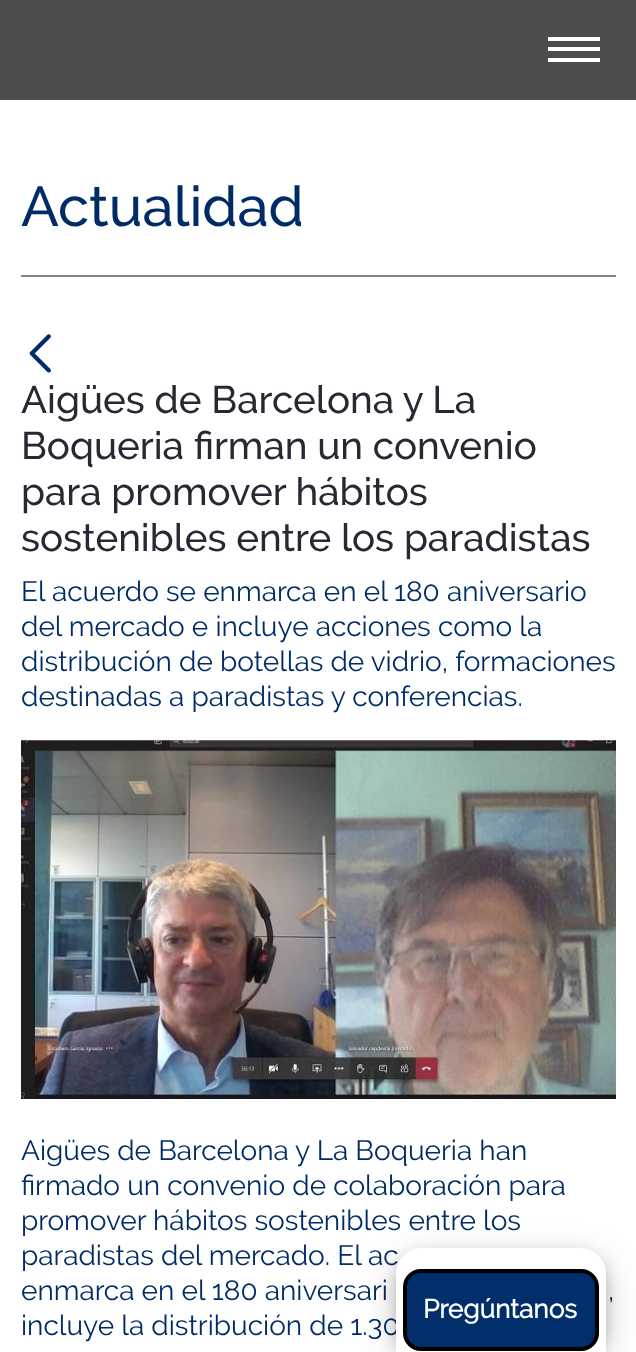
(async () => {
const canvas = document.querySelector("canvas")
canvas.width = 636
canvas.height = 1352
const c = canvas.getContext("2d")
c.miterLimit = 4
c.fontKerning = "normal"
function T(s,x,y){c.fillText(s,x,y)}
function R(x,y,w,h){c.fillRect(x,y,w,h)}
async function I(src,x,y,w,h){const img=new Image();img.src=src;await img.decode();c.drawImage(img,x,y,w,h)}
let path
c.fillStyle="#fff"
R(0,0,636,1352)
c.fillStyle="#858585"
R(21,275,595,2)
c.font="500 56px Raleway"
c.fillStyle="#002c66"
T("Actualidad",21,226)
await I("1.png",29,334,22,39)
c.font="500 38.5px Raleway"
c.fillStyle="#272833"
T("Aigües de Barcelona y La",21,413)
T("Boqueria firman un convenio",21,459)
T("para promover hábitos",21,505)
T("sostenibles entre los paradistas",21,551)
c.font="28px Raleway"
c.fillStyle="#002c66"
T("El acuerdo se enmarca en el 180 aniversario",21,601)
T("del mercado e incluye acciones como la",21,636)
T("distribución de botellas de vidrio, formaciones",21,671)
T("destinadas a paradistas y conferencias.",21,706)
await I("2.png",21,740,595,359)
T("Aigües de Barcelona y La Boqueria han",21,1160)
T("firmado un convenio de colaboración para",21,1195)
T("promover hábitos sostenibles entre los",21,1230)
T("paradistas del mercado. El ac",21,1265)
T("enmarca en el 180 aniversari",21,1300)
T(",",608,1300)
T("incluye la distribución de 1.30",21,1335)
c.fillStyle="#4c4c4c"
R(0,0,636,100)
c.fillStyle="#fff"
R(548,37,52,4)
R(548,47,52,4)
R(548,58,52,4)
c.fillStyle="#00000030"
c.filter="blur(17.5px)"
c.beginPath()
c.roundRect(396,1258,210,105,26)
c.fill()
c.filter="none"
c.fillStyle="#00000033"
c.filter="blur(7px)"
c.beginPath()
c.roundRect(396,1255,210,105,26)
c.fill()
c.filter="none"
c.fillStyle="#fff"
path = new Path2D("M422 1248h158c14.5 0 26 11.5 26 26v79h-210v-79c0-14.5 11.5-26 26-26z")
c.fill(path)
c.fillStyle="#002f6c"
c.beginPath()
c.roundRect(405,1271,192,78,16)
c.fill()
c.strokeStyle="#000"
c.lineWidth=4
c.stroke()
c.font="bold 26.25px Raleway"
c.fillStyle="#fff"
T("Pregúntanos",423,1318)
})()
